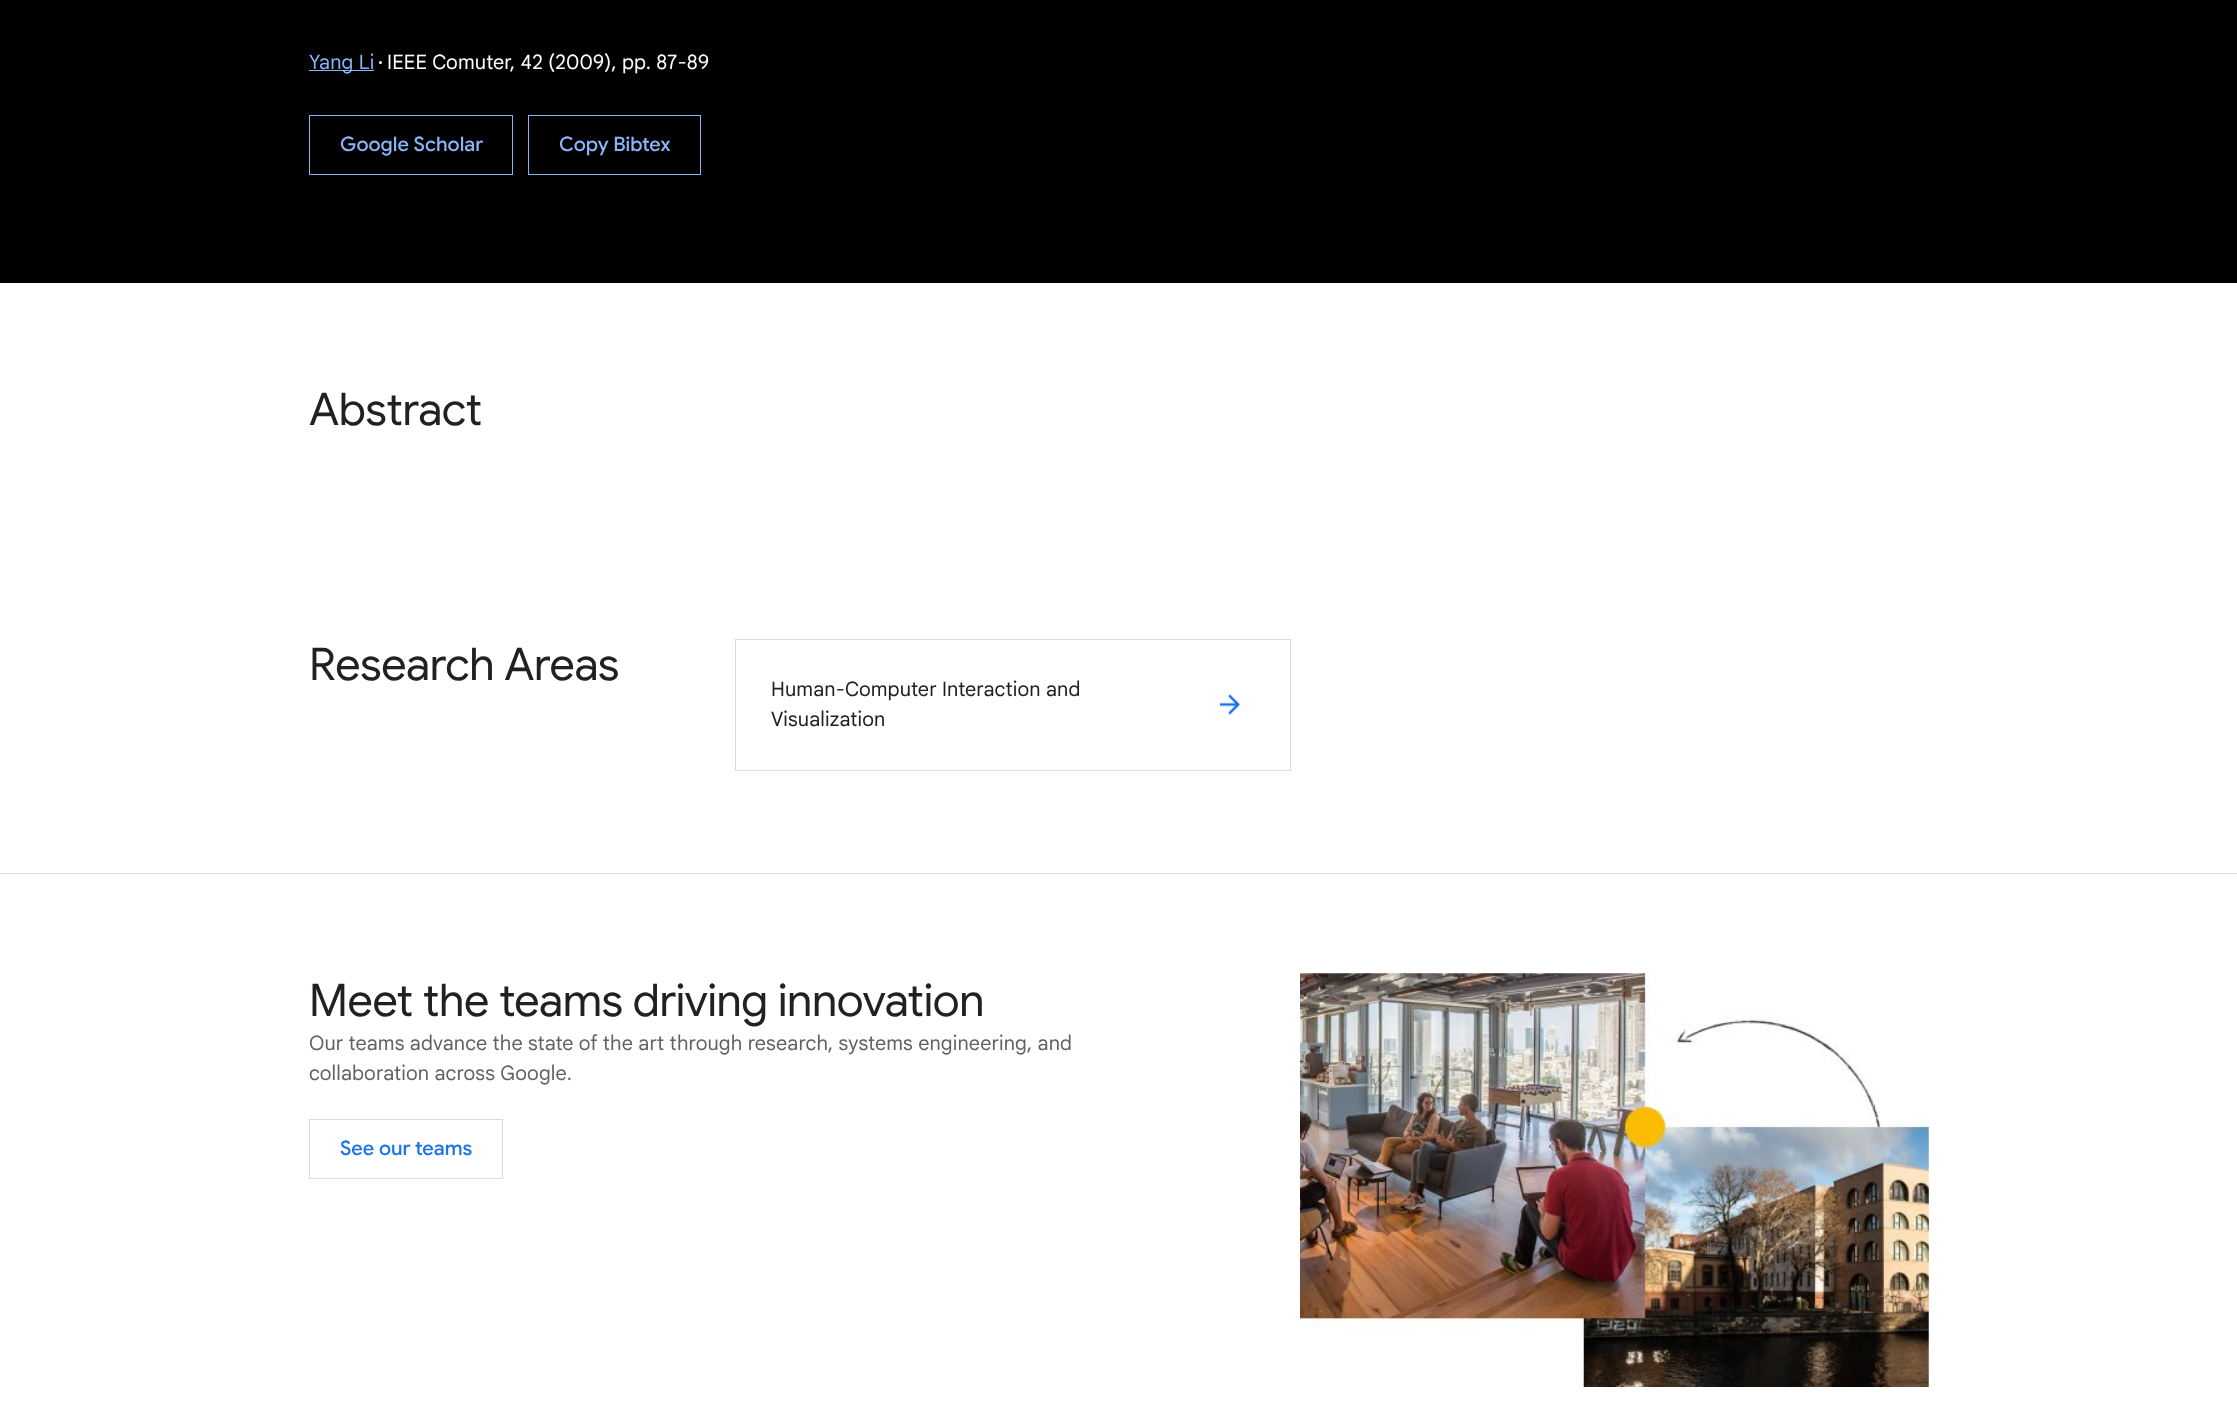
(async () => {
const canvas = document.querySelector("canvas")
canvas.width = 2237
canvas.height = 1413
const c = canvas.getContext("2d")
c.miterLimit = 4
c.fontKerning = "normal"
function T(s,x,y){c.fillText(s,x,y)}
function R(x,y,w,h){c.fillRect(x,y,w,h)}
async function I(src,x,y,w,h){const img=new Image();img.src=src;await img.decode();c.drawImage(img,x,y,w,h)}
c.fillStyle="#fff"
R(0,0,2237,1413)
c.fillStyle="#000"
R(0,0,2237,283)
c.fillStyle="#8ab4f8"
R(309,70,65,1)
c.letterSpacing="0.12px"
c.font="20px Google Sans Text"
T("Yang Li",309,69)
c.fillStyle="#fff"
c.beginPath()
c.arc(380.5,62.5,1.5,0,7)
c.fill()
T("IEEE Comuter, 42 (2009), pp. 87-89",387,69)
c.strokeStyle="#8ab4f8"
c.strokeRect(309.5,115.5,203,59)
c.letterSpacing="0px"
c.font="500 20px Google Sans"
c.fillStyle="#8ab4f8"
T("Google Scholar",340,151)
c.strokeRect(528.5,115.5,172,59)
T("Copy Bibtex",559,151)
c.letterSpacing="-0.3px"
c.font="45px Google Sans"
c.fillStyle="#202124"
T("Abstract",309,425)
T("Research Areas",309,680)
c.strokeStyle="#dadce0"
c.strokeRect(735.5,639.5,555,131)
c.letterSpacing="0.12px"
c.font="20px Google Sans Text"
T("Human-Computer Interaction and",771,696)
T("Visualization",771,726)
await I("1.png",1220,694,20,21)
c.fillStyle="#dadce0"
R(0,873,2237,1)
c.letterSpacing="-0.3px"
c.font="45px Google Sans"
c.fillStyle="#202124"
T("Meet the teams driving innovation",309,1016)
c.letterSpacing="0.12px"
c.font="20px Google Sans Text"
c.fillStyle="#5f6368"
T("Our teams advance the state of the art through research, systems engineering, and",309,1050)
T("collaboration across Google.",309,1080)
c.strokeRect(309.5,1119.5,193,59)
c.letterSpacing="0px"
c.font="500 20px Google Sans"
c.fillStyle="#1a73e8"
T("See our teams",340,1155)
await I("2.png",1300,973,629,414)
})()
